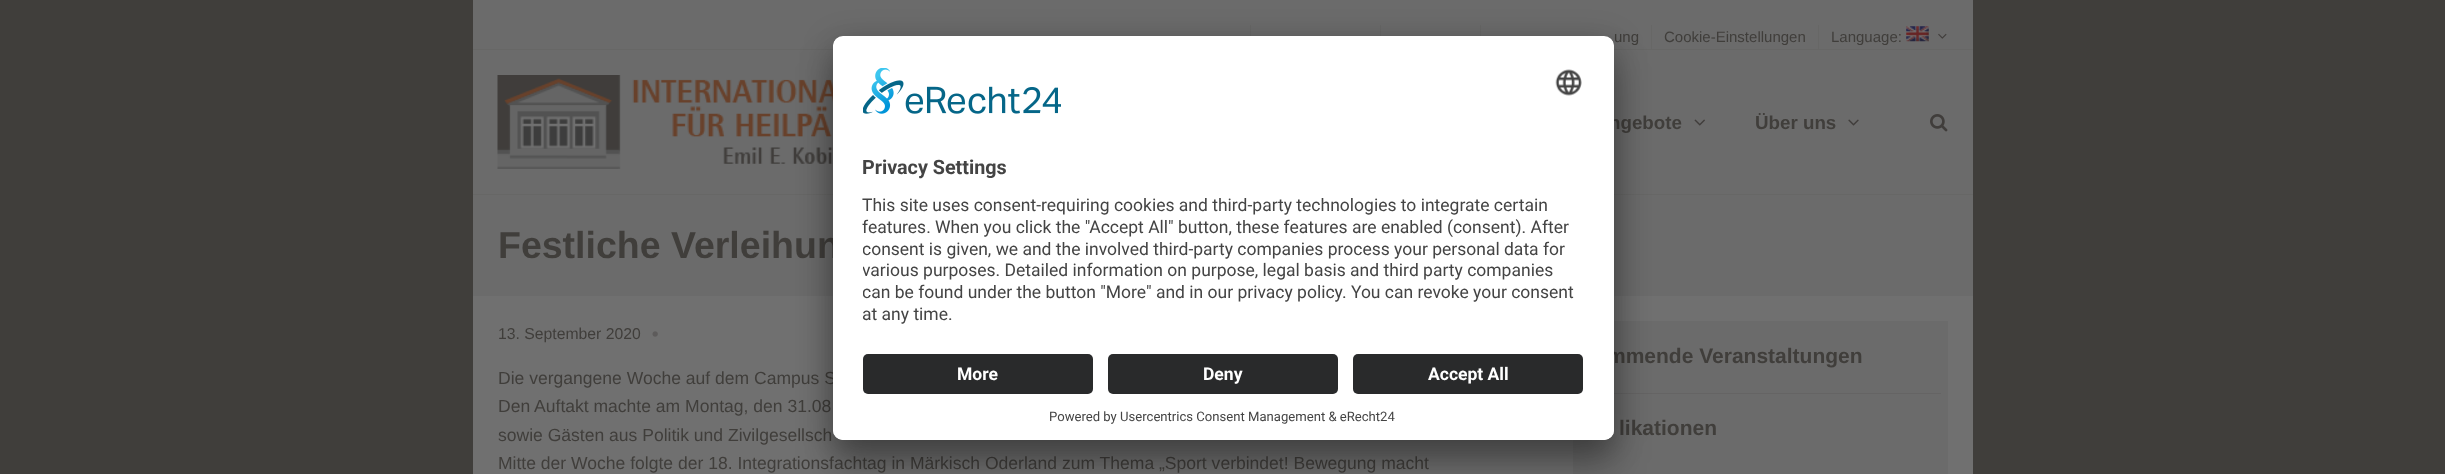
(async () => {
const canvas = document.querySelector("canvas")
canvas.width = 2445
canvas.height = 474
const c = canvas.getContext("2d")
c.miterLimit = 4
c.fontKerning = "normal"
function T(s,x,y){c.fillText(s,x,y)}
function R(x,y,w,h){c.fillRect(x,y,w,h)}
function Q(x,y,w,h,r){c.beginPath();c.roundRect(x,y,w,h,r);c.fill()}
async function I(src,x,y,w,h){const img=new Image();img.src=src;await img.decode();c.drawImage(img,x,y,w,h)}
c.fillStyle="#403e3b"
R(0,0,2445,474)
c.fillStyle="#6b6b6b"
R(473,0,1500,194)
c.fillStyle="#676766"
R(473,49,1500,1)
R(1250,25,1,11)
R(1380,25,1,11)
R(1480,25,1,11)
c.font="15px Liberation Sans"
c.fillStyle="#403e3b"
T("ung",1614,42)
c.fillStyle="#676766"
R(1651,25,1,24)
c.fillStyle="#403e3b"
T("Cookie-Einstellungen",1664,42)
c.fillStyle="#676766"
R(1818,25,1,24)
c.fillStyle="#403e3b"
T("Language:",1831,42)
await I("1.png",1906,26,23,16)
await I("2.png",1938,33,9,6)
c.fillStyle="#676766"
R(473,194,1500,1)
await I("3.png",497,75,336,94)
c.font="bold 18.75px Liberation Sans"
c.fillStyle="#403e3b"
T("ngebote",1609,129)
await I("4.png",1694,119,11,7)
T("Über uns",1755,129)
await I("5.png",1848,119,11,7)
await I("6.png",1930,114,18,18)
c.fillStyle="#6b6b6b"
R(473,195,1500,101)
c.font="bold 37.5px Liberation Sans"
c.fillStyle="#403e3b"
T("Festliche Verleihun",498,258)
c.fillStyle="#707070"
R(473,296,1500,178)
c.font="15.75px Liberation Sans"
c.fillStyle="#403e3b"
T("13. September 2020",498,339)
await I("7.png",652,331,6,6)
c.font="17.55px Liberation Sans"
T("Die vergangene Woche auf dem Campus S",498,384)
T("Den Auftakt machte am Montag, den 31.08",498,412)
T("sowie Gästen aus Politik und Zivilgesellsch",498,441)
T("Mitte der Woche folgte der 18. Integrationsfachtag in Märkisch Oderland zum Thema „Sport verbindet! Bewegung macht",498,469)
c.fillStyle="#6b6b6b"
R(1573,321,375,153)
c.fillStyle="#656464"
R(1614,393,327,1)
c.font="bold 21px Liberation Sans"
c.fillStyle="#403e3b"
T("mmende Veranstaltungen",1607,363)
T("likationen",1619,435)
c.fillStyle="#0000004d"
c.filter="blur(17.5px)"
c.beginPath()
c.roundRect(833,61,781,404,10)
c.fill()
c.filter="none"
c.fillStyle="#00000038"
c.filter="blur(16px)"
c.beginPath()
c.roundRect(833,43,781,403,10)
c.fill()
c.filter="none"
c.fillStyle="#fff"
Q(833,36,781,404,10)
c.save()
c.beginPath()
c.roundRect(833,36,781,404,10)
c.clip()
c.beginPath()
c.roundRect(833,36,781,308,[10,10,0,0])
c.clip()
R(833,38,781,306)
c.restore()
await I("8.png",863,68,198,46)
await I("9.png",1555,69,27,27)
c.font="bold 19.75px Roboto"
c.fillStyle="#444"
T("Privacy Settings",862,174)
c.font="17.5px Roboto"
T("This site uses consent-requiring cookies and third-party technologies to integrate certain",862,211)
T("features. When you click the \"Accept All\" button, these features are enabled (consent). After",862,233)
c.save()
c.beginPath()
c.rect(863,190,721,141)
c.clip()
T("consent is given, we and the involved third-party companies process your personal data for",862,255)
T("various purposes. Detailed information on purpose, legal basis and third party companies",862,276)
T("can be found under the button \"More\" and in our privacy policy. You can revoke your consent",862,298)
c.restore()
T("at any time.",862,320)
c.fillStyle="#fff"
c.beginPath()
c.roundRect(833,344,781,96,[0,0,10,10])
c.fill()
c.fillStyle="#292a2b"
Q(863,354,230,40,5)
c.font="bold 17.5px Roboto"
c.fillStyle="#fff"
T("More",957,380)
c.fillStyle="#292a2b"
Q(1108,354,230,40,5)
c.fillStyle="#fff"
T("Deny",1203,380)
c.fillStyle="#292a2b"
Q(1353,354,230,40,5)
c.fillStyle="#fff"
T("Accept All",1428,380)
c.font="13.1px Roboto"
c.fillStyle="#444"
T("Powered by Usercentrics Consent Management & eRecht24",1049,421)
})()
